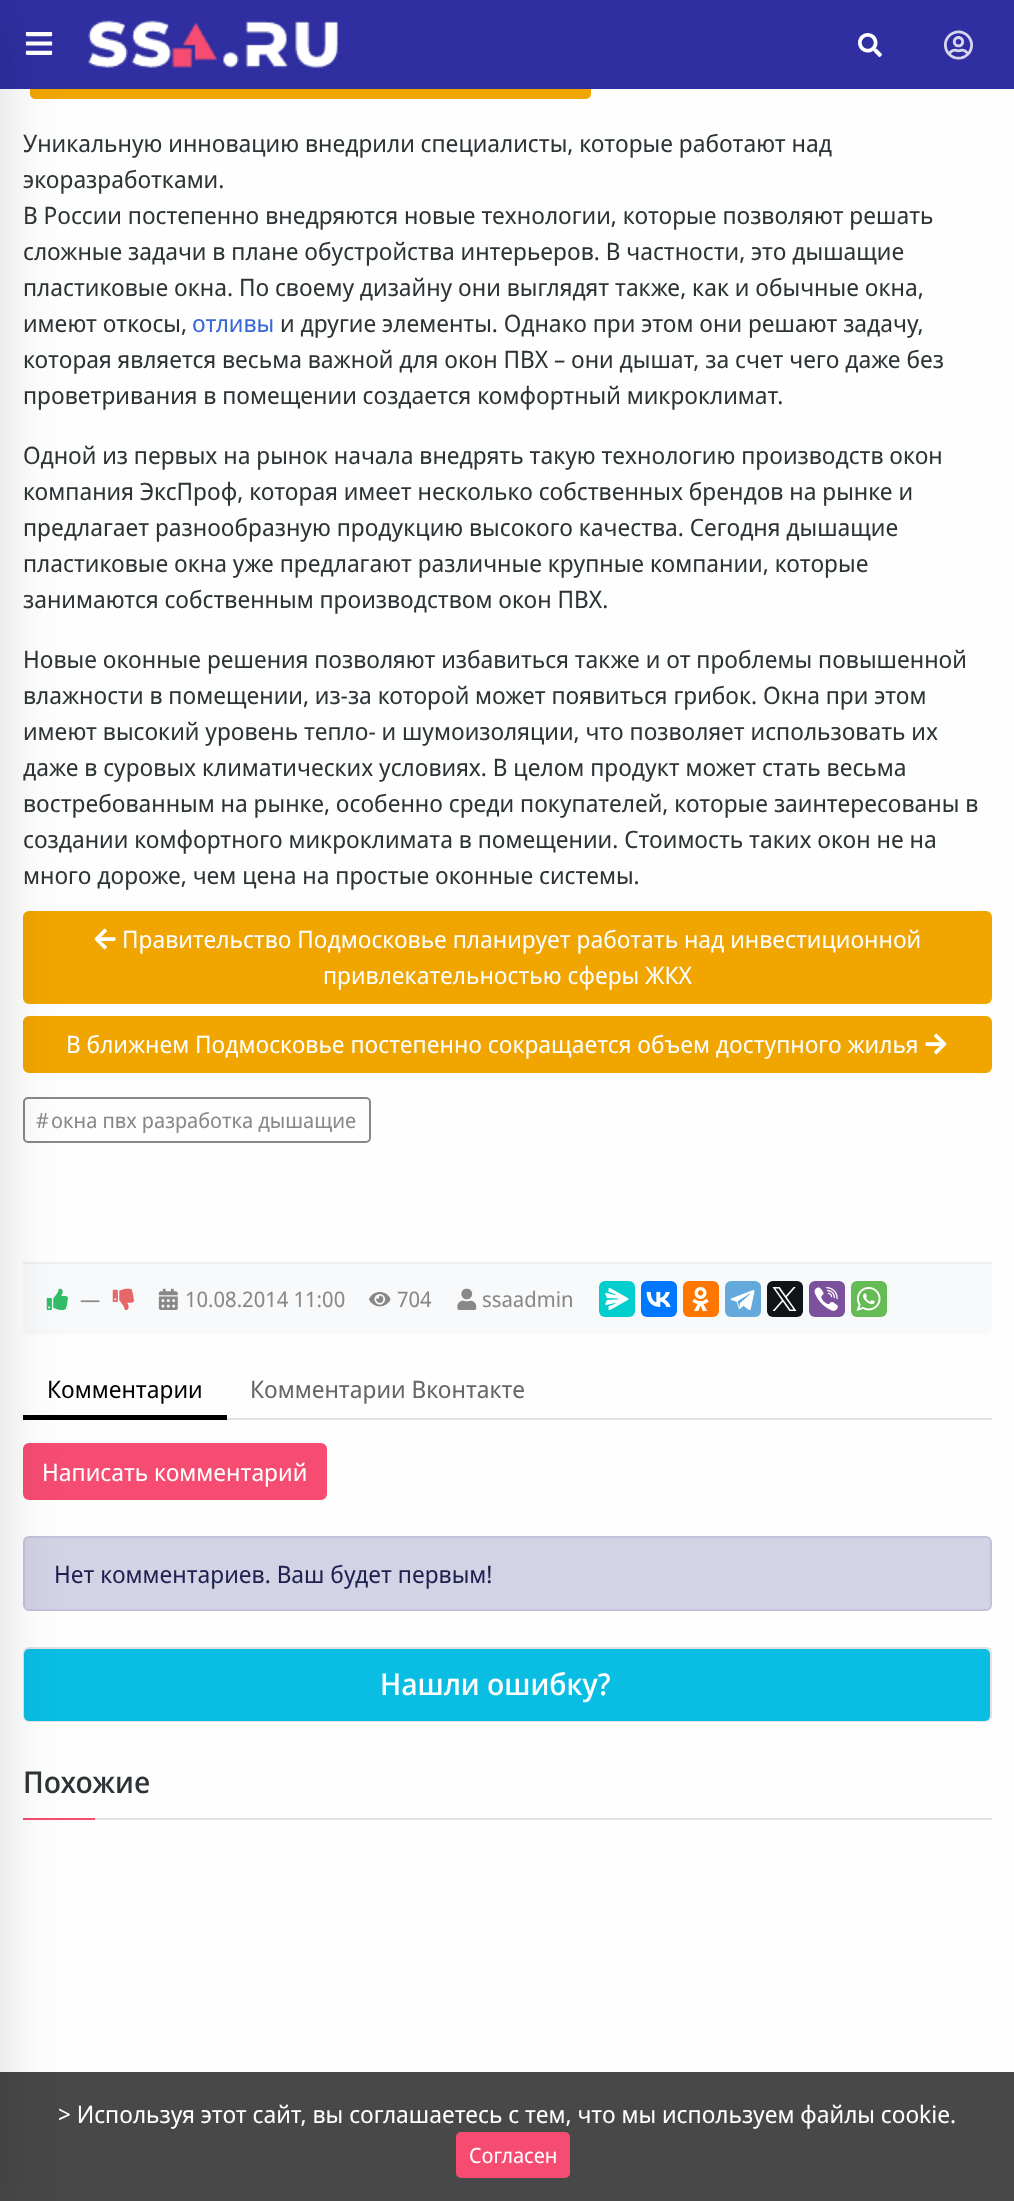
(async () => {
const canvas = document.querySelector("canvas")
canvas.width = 1014
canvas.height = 2201
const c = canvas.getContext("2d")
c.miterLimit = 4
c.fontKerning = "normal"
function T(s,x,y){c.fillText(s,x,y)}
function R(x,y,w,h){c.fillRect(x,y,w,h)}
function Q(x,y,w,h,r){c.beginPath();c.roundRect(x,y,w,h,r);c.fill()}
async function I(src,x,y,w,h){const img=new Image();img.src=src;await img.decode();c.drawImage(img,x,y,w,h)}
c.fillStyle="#fefefe"
R(0,0,1014,2201)
c.fillStyle="#f0a500"
c.beginPath()
c.roundRect(31,54,559,44,4)
c.fill()
c.strokeStyle="#f0a500"
c.lineWidth=2
c.stroke()
c.fillStyle="#2f2fa2"
R(0,0,1014,89)
await I("1.png",25,32,28,23)
await I("2.png",88,20,250,48)
await I("3.png",858,33,24,24)
await I("4.png",944,30,29,30)
c.fillStyle="#484848"
R(0,2072,1014,129)
c.fillStyle="#f0a500"
c.beginPath()
c.roundRect(24,912,967,91,5)
c.fill()
c.stroke()
c.beginPath()
c.roundRect(24,1017,967,55,5)
c.fill()
c.stroke()
c.beginPath()
c.roundRect(24,1098,346,44,4)
c.strokeStyle="#888"
c.stroke()
c.fillStyle="#f8f9fa"
c.beginPath()
c.roundRect(23,1262,969,73,[0,0,6,6])
c.fill()
c.fillStyle="#eee"
R(23,1262,969,2)
await I("7.png",46,1288,22,22)
c.fillStyle="#000"
R(23,1415,204,5)
c.fillStyle="#f64c72"
c.beginPath()
c.roundRect(24,1444,302,55,5)
c.fill()
c.strokeStyle="#f64c72"
c.stroke()
c.fillStyle="#d3d3e6"
c.beginPath()
c.roundRect(24,1537,967,73,5)
c.fill()
c.strokeStyle="#c2c2dc"
c.stroke()
c.beginPath()
c.roundRect(24,1648,967,73,5)
c.strokeStyle="#e2e2e2"
c.stroke()
c.fillStyle="#0abde3"
Q(24,1649,966,72,5)
c.fillStyle="#f64c72"
R(23,1818,72,2)
c.fillStyle="#00000024"
c.filter="blur(30px)"
c.beginPath()
c.rect(-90,15,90,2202)
c.fill()
c.filter="none"
c.font="24px Noto Sans Display"
c.fillStyle="#2d3436"
T("Уникальную инновацию внедрили специалисты, которые работают над",23,152)
T("экоразработками.",23,188)
T("В России постепенно внедряются новые технологии, которые позволяют решать",23,224)
T("сложные задачи в плане обустройства интерьеров. В частности, это дышащие",23,260)
T("пластиковые окна. По своему дизайну они выглядят также, как и обычные окна,",23,296)
T("имеют откосы,",23,332)
c.fillStyle="#3867d6"
T("отливы",192,332)
c.fillStyle="#2d3436"
T("и другие элементы. Однако при этом они решают задачу,",280,332)
T("которая является весьма важной для окон ПВХ – они дышат, за счет чего даже без",23,368)
T("проветривания в помещении создается комфортный микроклимат.",23,404)
T("Одной из первых на рынок начала внедрять такую технологию производств окон",23,464)
T("компания ЭксПроф, которая имеет несколько собственных брендов на рынке и",23,500)
T("предлагает разнообразную продукцию высокого качества. Сегодня дышащие",23,536)
T("пластиковые окна уже предлагают различные крупные компании, которые",23,572)
T("занимаются собственным производством окон ПВХ.",23,608)
T("Новые оконные решения позволяют избавиться также и от проблемы повышенной",23,668)
T("влажности в помещении, из-за которой может появиться грибок. Окна при этом",23,704)
T("имеют высокий уровень тепло- и шумоизоляции, что позволяет использовать их",23,740)
T("даже в суровых климатических условиях. В целом продукт может стать весьма",23,776)
T("востребованным на рынке, особенно среди покупателей, которые заинтересованы в",23,812)
T("создании комфортного микроклимата в помещении. Стоимость таких окон не на",23,848)
T("много дороже, чем цена на простые оконные системы.",23,884)
await I("5.png",94,928,22,22)
c.fillStyle="#fff"
T("Правительство Подмосковье планирует работать над инвестиционной",122,948)
T("привлекательностью сферы ЖКХ",323,984)
T("В ближнем Подмосковье постепенно сокращается объем доступного жилья",66,1053)
await I("6.png",925,1033,22,22)
c.font="21px Noto Sans Display"
c.fillStyle="#888"
T("#",36,1128)
T("окна пвх разработка дышащие",51,1128)
c.font="21.5px Noto Sans Display"
T("—",80,1307)
await I("8.png",112,1288,22,22)
await I("9.png",158,1288,20,22)
T("10.08.2014 11:00",185,1307)
await I("10.png",369,1292,22,15)
T("704",397,1307)
await I("11.png",457,1288,20,22)
T("ssaadmin",482,1307)
c.fillStyle="#03cece"
Q(599,1281,36,36,6)
await I("12.png",605,1287,24,24)
c.fillStyle="#07f"
Q(641,1281,36,36,6)
await I("13.png",646,1291,25,16)
c.fillStyle="#f70"
Q(683,1281,36,36,6)
await I("14.png",692,1287,17,24)
c.fillStyle="#64a9dc"
Q(725,1281,36,36,6)
await I("15.png",730,1290,25,21)
c.fillStyle="#0f1419"
Q(767,1281,36,36,6)
await I("16.png",772,1287,25,24)
c.fillStyle="#7b519d"
Q(809,1281,36,36,6)
await I("17.png",814,1287,24,24)
c.fillStyle="#65bc54"
Q(851,1281,36,36,6)
await I("18.png",856,1287,25,24)
c.fillStyle="#dee2e6"
R(227,1418,765,2)
c.font="24px Noto Sans Display"
c.fillStyle="#000"
T("Комментарии",47,1398)
c.fillStyle="#666"
T("Комментарии Вконтакте",250,1398)
c.fillStyle="#fff"
T("Написать комментарий",42,1481)
c.fillStyle="#1f2050"
T("Нет комментариев. Ваш будет первым!",54,1583)
c.font="500 30px Noto Sans Display"
c.fillStyle="#fff"
T("Нашли ошибку?",380,1695)
c.fillStyle="#e2e2e2"
R(95,1818,897,2)
c.fillStyle="#2d3436"
T("Похожие",23,1793)
c.font="24px Noto Sans Display"
c.fillStyle="#fff"
T("> Используя этот сайт, вы соглашаетесь с тем, что мы используем файлы cookie.",58,2123)
c.fillStyle="#f64c72"
c.beginPath()
c.roundRect(457,2133,112,44,4)
c.fill()
c.strokeStyle="#f64c72"
c.stroke()
c.font="21px Noto Sans Display"
c.fillStyle="#fff"
T("Согласен",469,2163)
})()
